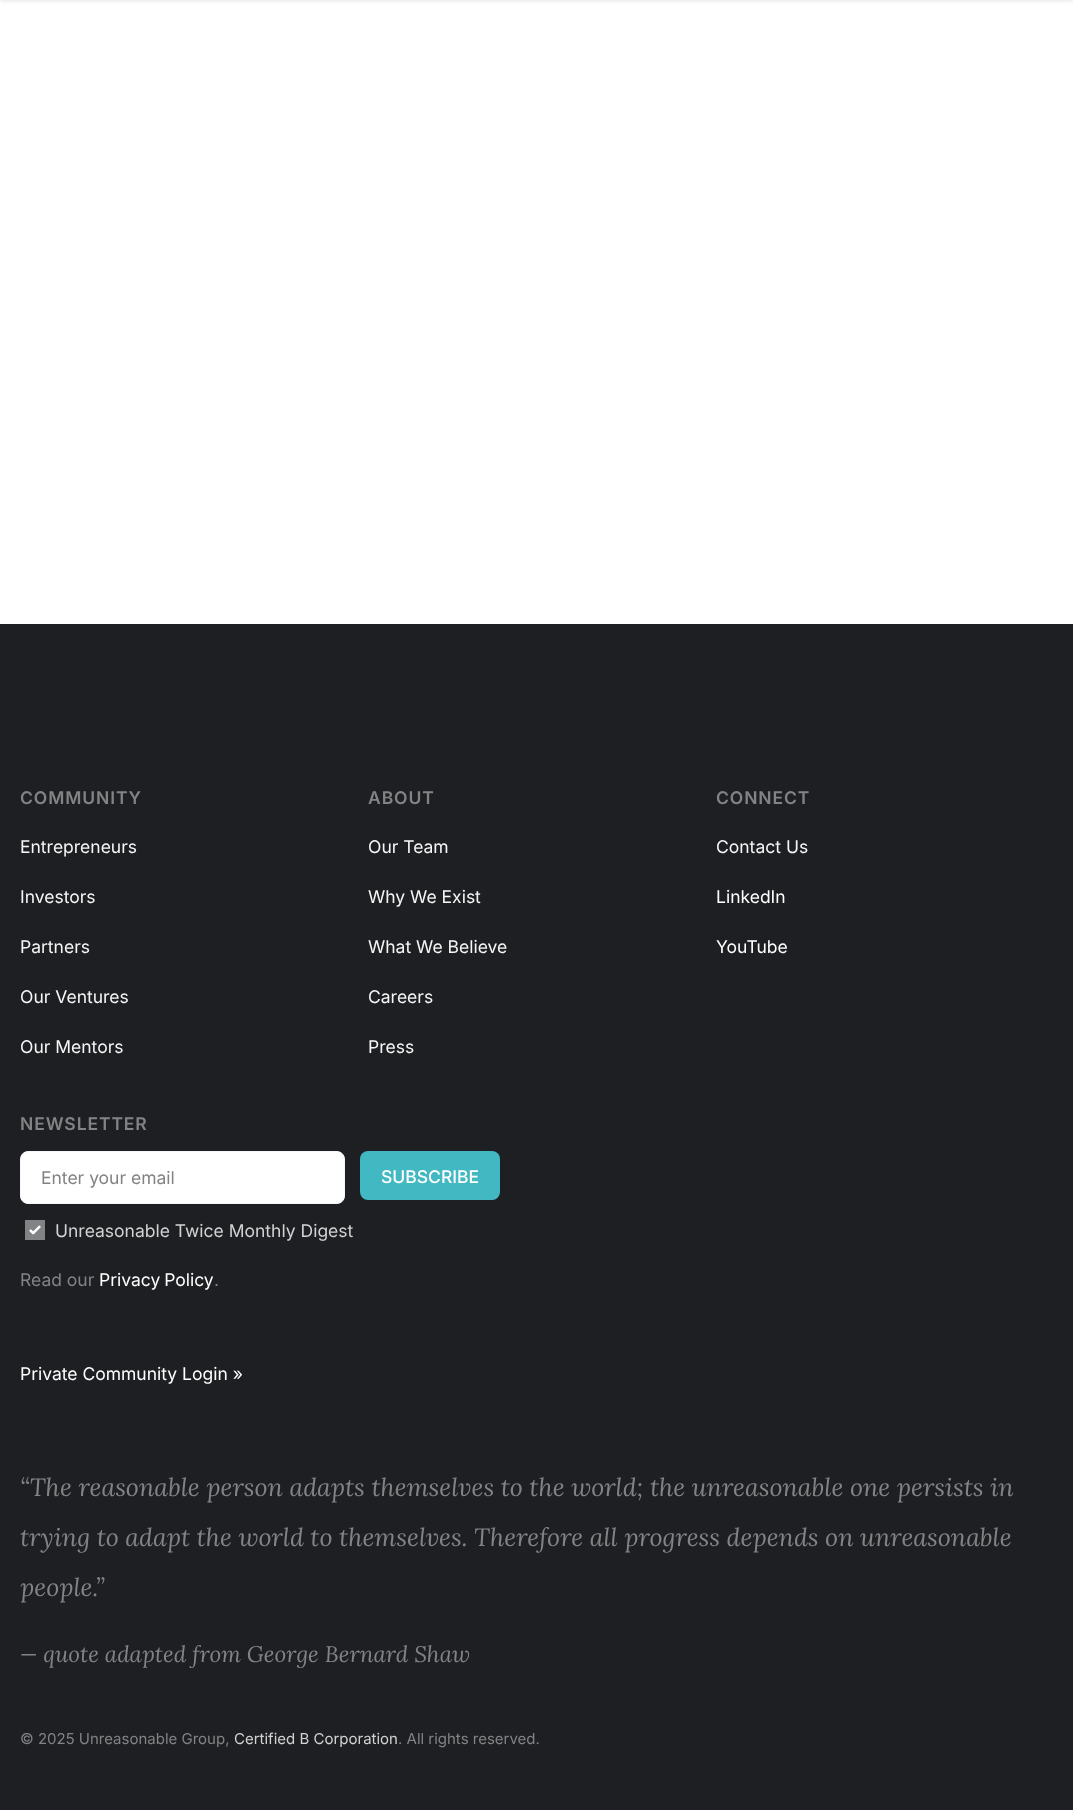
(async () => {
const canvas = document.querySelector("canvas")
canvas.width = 1073
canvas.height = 1810
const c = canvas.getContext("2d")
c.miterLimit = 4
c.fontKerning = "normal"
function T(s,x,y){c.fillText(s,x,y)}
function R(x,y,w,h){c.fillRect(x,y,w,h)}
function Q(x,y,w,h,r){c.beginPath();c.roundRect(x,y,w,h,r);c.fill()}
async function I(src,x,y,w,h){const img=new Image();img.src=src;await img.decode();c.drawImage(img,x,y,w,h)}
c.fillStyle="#fff"
R(0,0,1073,1810)
c.fillStyle="#0000001a"
c.filter="blur(2px)"
c.beginPath()
c.rect(0,-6,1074,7)
c.fill()
c.filter="none"
c.fillStyle="#1d1f22"
R(0,624,1073,1186)
c.letterSpacing="0.9px"
c.font="600 17.5px Inter"
c.fillStyle="#828384"
T("COMMUNITY",20,804)
c.letterSpacing="0px"
c.font="17.5px Inter"
c.fillStyle="#f6f6f6"
T("Entrepreneurs",20,853)
T("Investors",20,903)
T("Partners",20,953)
T("Our Ventures",20,1003)
T("Our Mentors",20,1053)
c.letterSpacing="0.9px"
c.font="600 17.5px Inter"
c.fillStyle="#828384"
T("ABOUT",368,804)
c.letterSpacing="0px"
c.font="17.5px Inter"
c.fillStyle="#f6f6f6"
T("Our Team",368,853)
T("Why We Exist",368,903)
T("What We Believe",368,953)
T("Careers",368,1003)
T("Press",368,1053)
c.letterSpacing="0.9px"
c.font="600 17.5px Inter"
c.fillStyle="#828384"
T("CONNECT",716,804)
c.letterSpacing="0px"
c.font="17.5px Inter"
c.fillStyle="#f6f6f6"
T("Contact Us",716,853)
c.fillStyle="#fff"
T("LinkedIn",716,903)
T("YouTube",716,953)
c.letterSpacing="0.9px"
c.font="600 17.5px Inter"
c.fillStyle="#828384"
T("NEWSLETTER",20,1130)
c.fillStyle="#fff"
c.beginPath()
c.roundRect(20.5,1151.5,324,52,7.5)
c.fill()
c.strokeStyle="#f6f6f6"
c.stroke()
c.letterSpacing="0px"
c.font="17.5px Inter"
c.fillStyle="#828384"
T("Enter your email",41,1184)
c.fillStyle="#41b8c2"
Q(360,1151,140,49,8)
c.font="500 17.5px Inter"
c.fillStyle="#fff"
T("SUBSCRIBE",381,1183)
c.fillStyle="#828384"
R(25,1220,20,20)
await I("1.png",29,1225,12,10)
c.font="17.5px Inter"
c.fillStyle="#d2d2d2"
T("Unreasonable Twice Monthly Digest",55,1237)
c.fillStyle="#828384"
T("Read our",20,1286)
c.wordSpacing="-1px"
c.fillStyle="#fff"
T("Privacy Policy",99,1286)
c.wordSpacing="0px"
c.fillStyle="#828384"
T(".",214,1286)
c.fillStyle="#fff"
T("Private Community Login »",20,1380)
c.font="italic 25px Lora"
c.fillStyle="#828384"
T("“The reasonable person adapts themselves to the world; the unreasonable one persists in",20,1496)
T("trying to adapt the world to themselves. Therefore all progress depends on unreasonable",20,1546)
T("people.”",20,1596)
c.font="italic 22.5px Lora"
T("— quote adapted from George Bernard Shaw",20,1662)
c.font="15px Inter"
T("© 2025 Unreasonable Group,",20,1744)
c.fillStyle="#d2d2d2"
T("Certified B Corporation",234,1744)
c.fillStyle="#828384"
T(". All rights reserved.",398,1744)
})()
